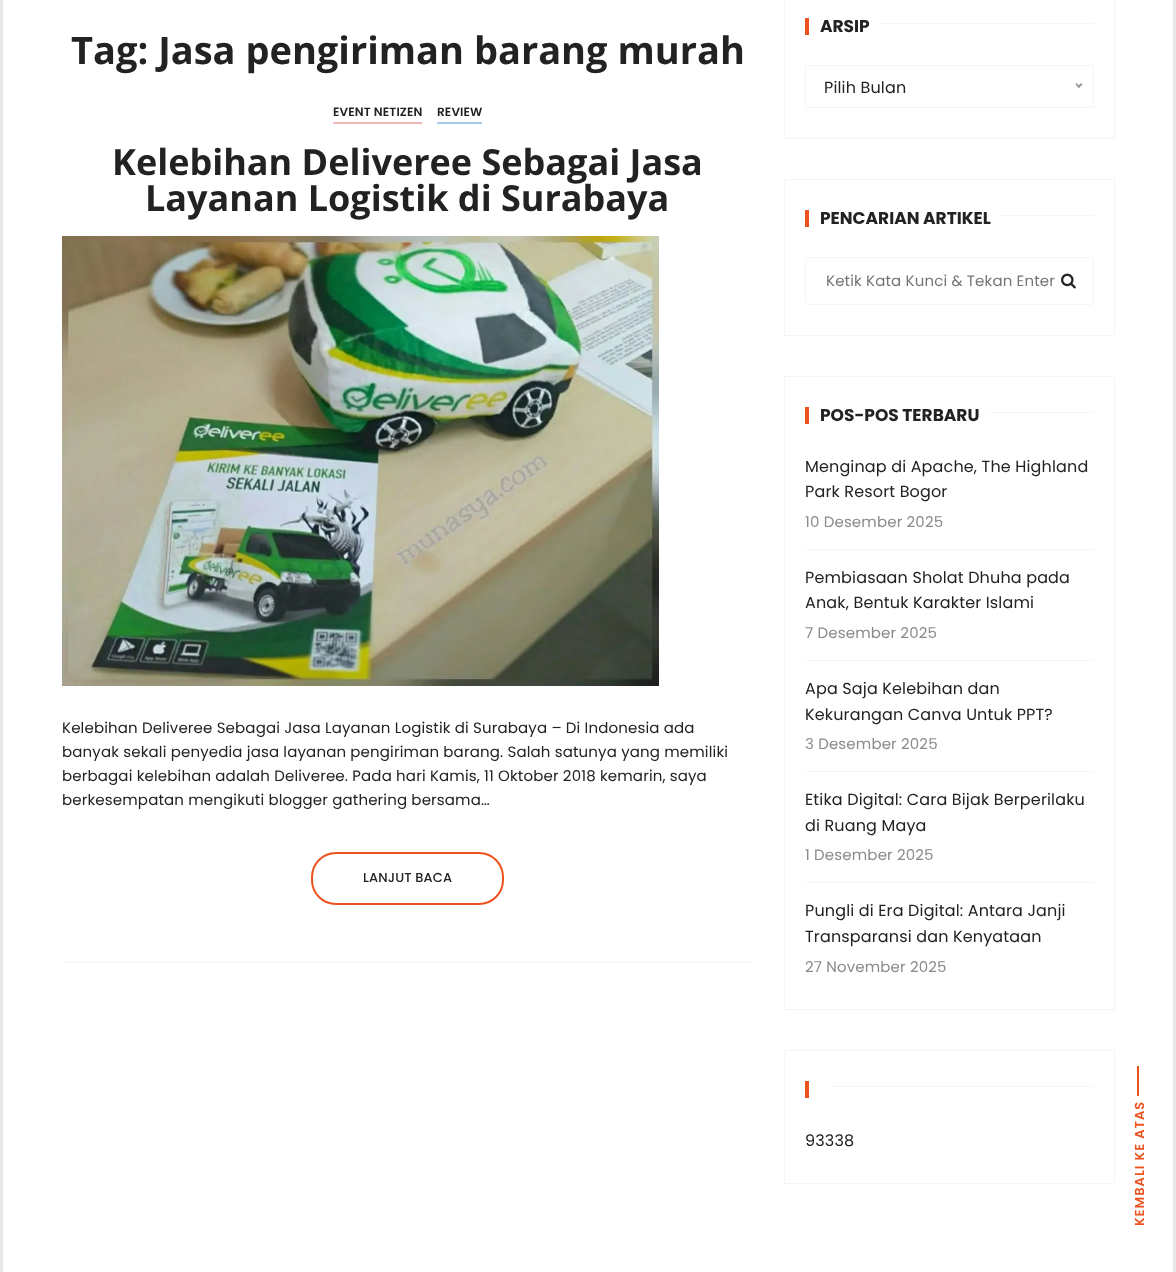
(async () => {
const canvas = document.querySelector("canvas")
canvas.width = 1176
canvas.height = 1272
const c = canvas.getContext("2d")
c.miterLimit = 4
c.fontKerning = "normal"
function T(s,x,y){c.fillText(s,x,y)}
function R(x,y,w,h){c.fillRect(x,y,w,h)}
async function I(src,x,y,w,h){const img=new Image();img.src=src;await img.decode();c.drawImage(img,x,y,w,h)}
let path
c.fillStyle="#e8e8e8"
R(0,0,1176,1272)
c.fillStyle="#fff"
R(3,0,1170,1272)
c.font="bold 38px Open Sans"
c.fillStyle="#222"
T("Tag: Jasa pengiriman barang murah",71,64)
c.fillStyle="#f5f5f5"
R(62,962,692,1)
c.letterSpacing="0.15px"
c.font="600 12px Poppins"
c.fillStyle="#222"
T("EVENT NETIZEN",333,116)
c.fillStyle="#f3b9b9"
R(333,122,89,2)
c.fillStyle="#222"
T("REVIEW",437,116)
c.fillStyle="#a5caea"
R(437,122,45,2)
c.letterSpacing="0px"
c.font="bold 36px Open Sans"
c.fillStyle="#222"
T("Kelebihan Deliveree Sebagai Jasa",112,175)
T("Layanan Logistik di Surabaya",145,211)
await I("1.png",62,236,597,450)
c.letterSpacing="0.15px"
c.font="15px Poppins"
T("Kelebihan Deliveree Sebagai Jasa Layanan Logistik di Surabaya – Di Indonesia ada",62,733)
T("banyak sekali penyedia jasa layanan pengiriman barang. Salah satunya yang memiliki",62,757)
T("berbagai kelebihan adalah Deliveree. Pada hari Kamis, 11 Oktober 2018 kemarin, saya",62,781)
T("berkesempatan mengikuti blogger gathering bersama…",62,805)
c.beginPath()
c.roundRect(312,853,191,51,24)
c.strokeStyle="#ec521e"
c.lineWidth=2
c.stroke()
c.font="500 13px Poppins"
T("LANJUT BACA",363,882)
c.strokeStyle="#f5f5f5"
c.lineWidth=1
c.strokeRect(784.5,-.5,330,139)
c.fillStyle="#ec521e"
R(805,18,4,17)
c.letterSpacing="0px"
c.font="bold 17px Poppins"
c.fillStyle="#222"
T("ARSIP",820,32)
c.fillStyle="#f5f5f5"
R(879,23,215,1)
c.strokeRect(805.5,65.5,288,42)
c.letterSpacing="0.15px"
c.font="16px Poppins"
c.fillStyle="#222"
T("Pilih Bulan",824,93)
c.fillStyle="#999"
path = new Path2D("M1081 83l1.5 1.5l-3.5 3.5l-1.5-1.5z")
c.fill(path)
path = new Path2D("M1076.5 83l3.5 3.5l-1 1.5l-3.5-3.5z")
c.fill(path)
c.strokeRect(784.5,179.5,330,156)
c.fillStyle="#ec521e"
R(805,210,4,17)
c.letterSpacing="0px"
c.font="bold 17px Poppins"
c.fillStyle="#222"
T("PENCARIAN ARTIKEL",820,224)
c.fillStyle="#f5f5f5"
R(1000,215,94,1)
c.beginPath()
c.roundRect(805.5,257.5,288,47,3.5)
c.stroke()
c.letterSpacing="0.15px"
c.font="15px Poppins"
c.fillStyle="#757575"
T("Ketik Kata Kunci & Tekan Enter",826,286)
await I("2.png",1061,273,15,16)
c.strokeRect(784.5,376.5,330,633)
c.fillStyle="#ec521e"
R(805,407,4,17)
c.letterSpacing="0px"
c.font="bold 17px Poppins"
c.fillStyle="#222"
T("POS-POS TERBARU",820,421)
c.fillStyle="#f5f5f5"
R(989,412,105,1)
R(805,549,289,1)
c.letterSpacing="0.15px"
c.font="16px Poppins"
c.fillStyle="#222"
T("Menginap di Apache, The Highland",805,472)
T("Park Resort Bogor",805,497)
c.font="15px Poppins"
c.fillStyle="#8c8b8b"
T("10 Desember 2025",805,527)
c.fillStyle="#f5f5f5"
R(805,660,289,1)
c.font="16px Poppins"
c.fillStyle="#222"
T("Pembiasaan Sholat Dhuha pada",805,583)
T("Anak, Bentuk Karakter Islami",805,608)
c.font="15px Poppins"
c.fillStyle="#8c8b8b"
T("7 Desember 2025",805,638)
c.fillStyle="#f5f5f5"
R(805,771,289,1)
c.font="16px Poppins"
c.fillStyle="#222"
T("Apa Saja Kelebihan dan",805,694)
T("Kekurangan Canva Untuk PPT?",805,720)
c.font="15px Poppins"
c.fillStyle="#8c8b8b"
T("3 Desember 2025",805,749)
c.fillStyle="#f5f5f5"
R(805,882,289,1)
c.font="16px Poppins"
c.fillStyle="#222"
T("Etika Digital: Cara Bijak Berperilaku",805,805)
T("di Ruang Maya",805,831)
c.font="15px Poppins"
c.fillStyle="#8c8b8b"
T("1 Desember 2025",805,860)
c.font="16px Poppins"
c.fillStyle="#222"
T("Pungli di Era Digital: Antara Janji",805,916)
T("Transparansi dan Kenyataan",805,942)
c.font="15px Poppins"
c.fillStyle="#8c8b8b"
T("27 November 2025",805,972)
c.strokeRect(784.5,1050.5,330,133)
c.fillStyle="#ec521e"
R(805,1081,4,17)
c.fillStyle="#f5f5f5"
R(830,1086,264,1)
c.font="16px Poppins"
c.fillStyle="#222"
T("93338",805,1146)
c.fillStyle="#ec521e"
R(1137,1066,2,30)
c.letterSpacing="1px"
c.font="600 13px Poppins"
c.save()
c.translate(1144,1226)
c.rotate(-90 * Math.PI / 180)
c.fillText("KEMBALI KE ATAS",0,0)
c.restore()
})()
